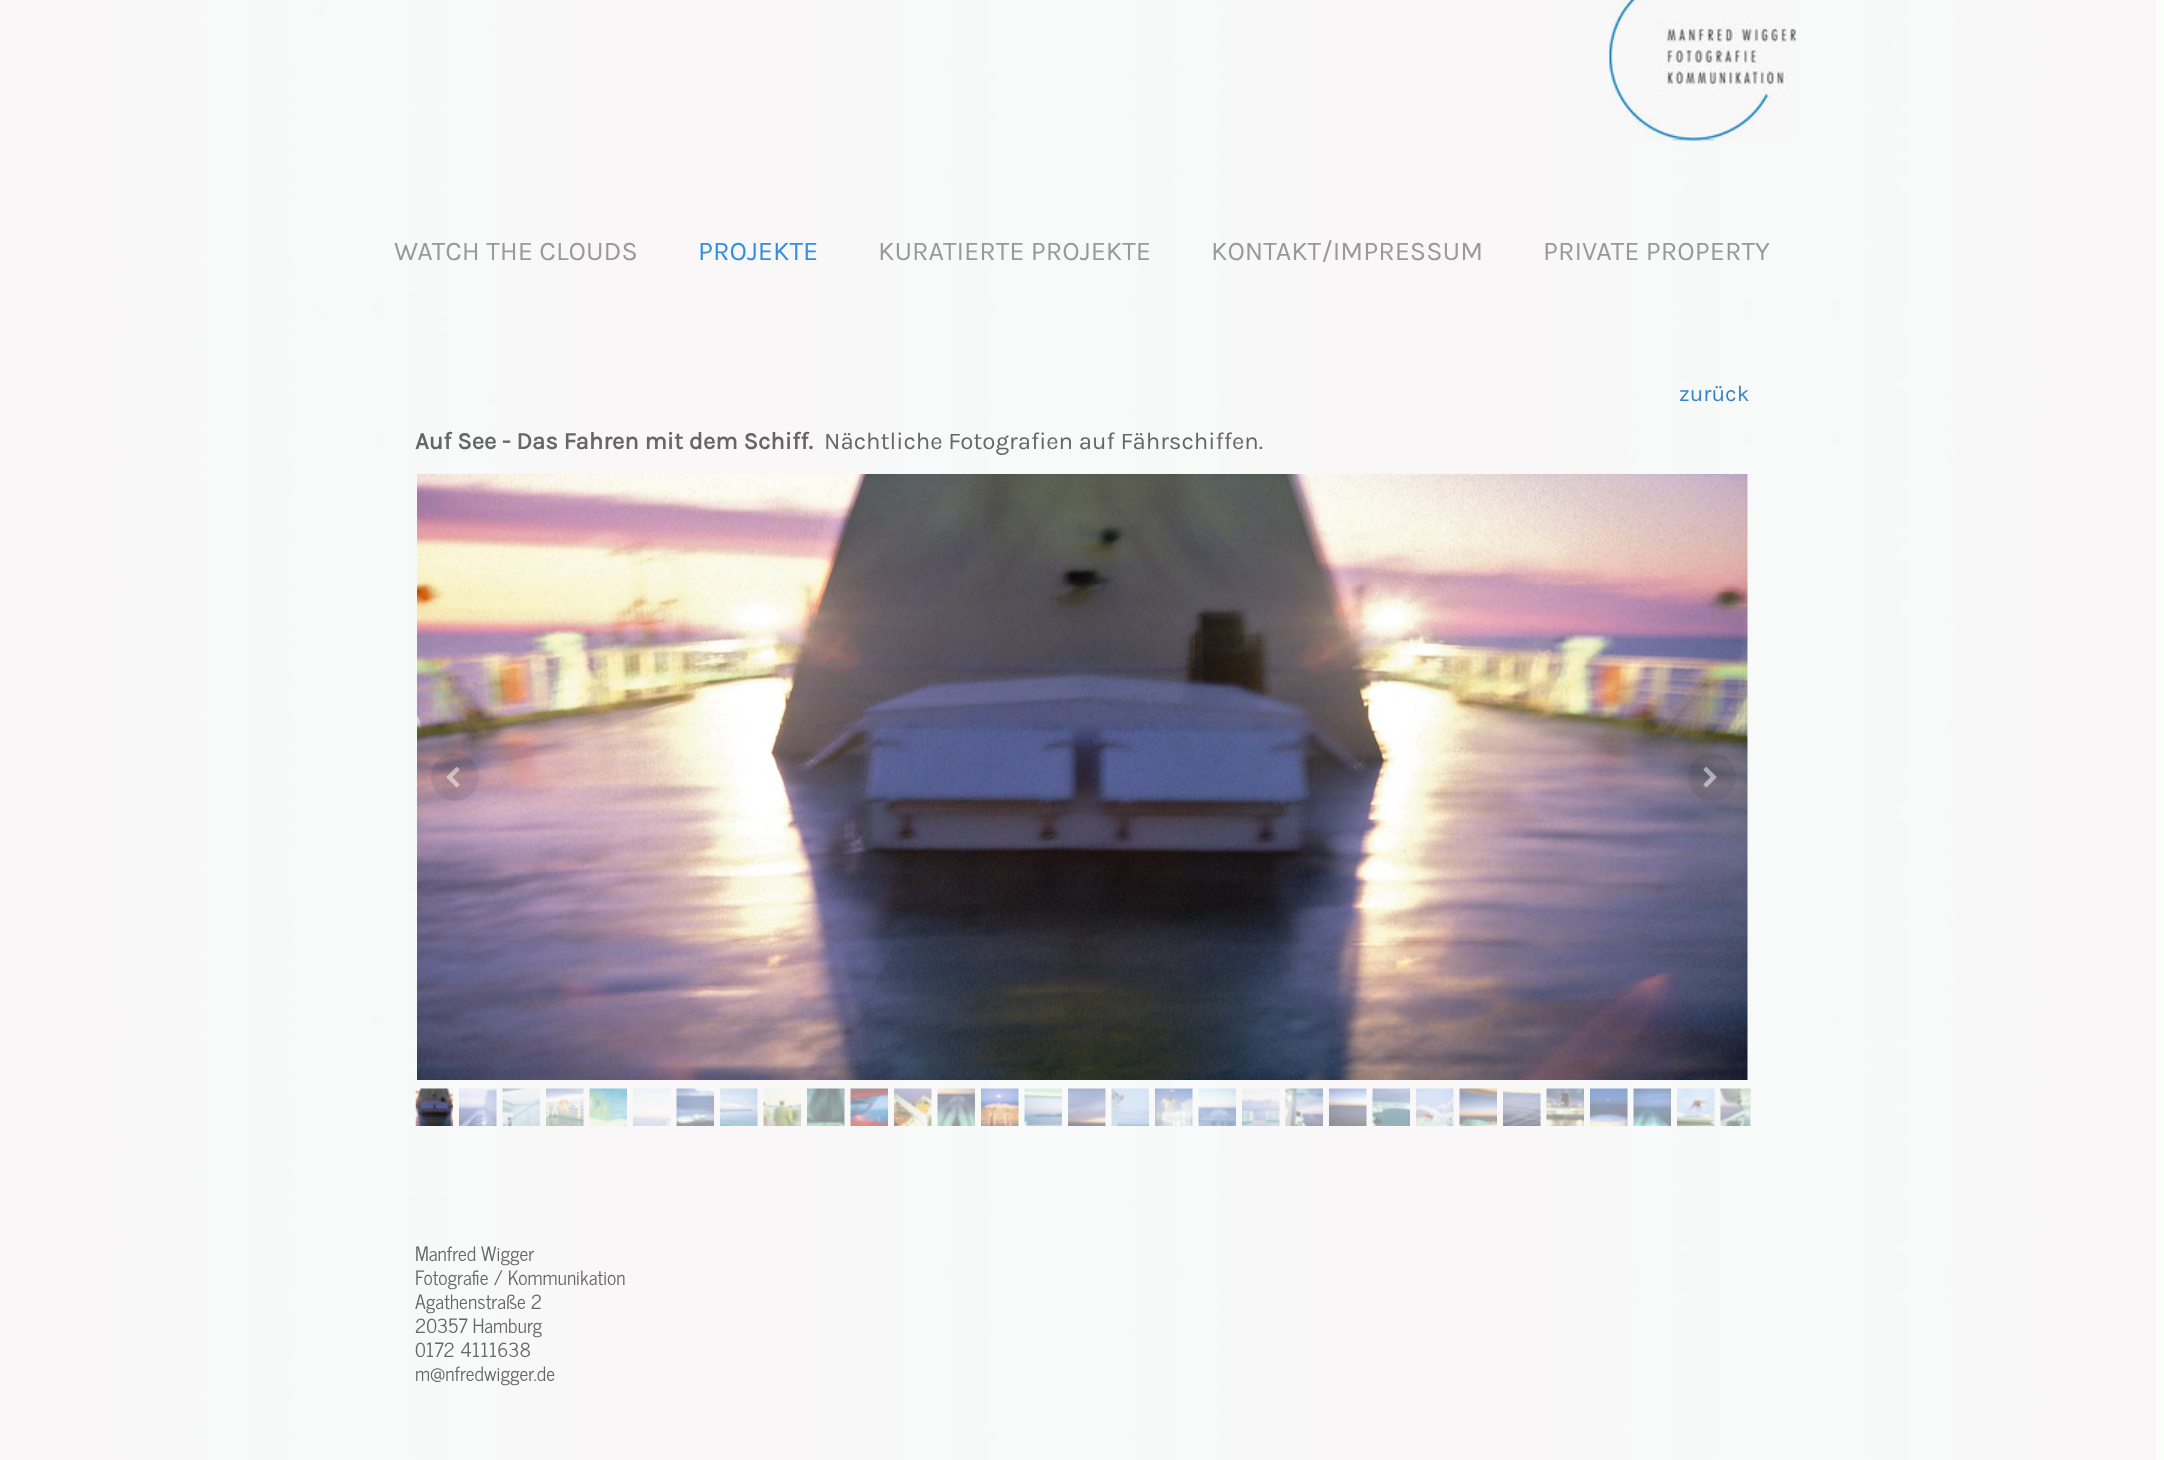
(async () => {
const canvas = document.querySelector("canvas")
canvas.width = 2164
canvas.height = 1460
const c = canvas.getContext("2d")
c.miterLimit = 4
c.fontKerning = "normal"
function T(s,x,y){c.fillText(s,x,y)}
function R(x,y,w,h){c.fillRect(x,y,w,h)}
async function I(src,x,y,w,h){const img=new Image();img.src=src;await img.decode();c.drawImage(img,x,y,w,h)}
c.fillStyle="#fcfefc"
R(0,0,2164,1460)
await I("1.png",0,0,2157,1460)
await I("2.png",1609,0,187,141)
c.font="27px Karla"
c.fillStyle="#999"
T("WATCH THE CLOUDS",394,260)
c.fillStyle="#318fe3"
T("PROJEKTE",698,260)
c.fillStyle="#999"
T("KURATIERTE PROJEKTE",878,260)
T("KONTAKT/IMPRESSUM",1211,260)
T("PRIVATE PROPERTY",1543,260)
c.font="22.5px Karla"
c.fillStyle="#3984c8"
T("zurück",1679,401)
c.font="bold 24px Karla"
c.fillStyle="#666"
T("Auf See - Das Fahren mit dem Schiff.",415,449)
c.font="24px Karla"
T("Nächtliche Fotografien auf Fährschiffen.",824,449)
await I("3.png",417,474,1331,606)
c.fillStyle="#00000012"
c.beginPath()
c.arc(455,777,24,0,7)
c.fill()
await I("4.png",446,766,14,22)
c.beginPath()
c.arc(1712,777,24,0,7)
c.fill()
await I("5.png",1703,766,14,22)
await I("6.png",415,1088,38,38)
await I("7.png",459,1088,38,38)
await I("8.png",502,1088,38,38)
await I("9.png",546,1088,38,38)
await I("10.png",589,1088,38,38)
await I("11.png",633,1088,38,38)
await I("12.png",676,1088,38,38)
await I("13.png",720,1088,38,38)
await I("14.png",763,1088,38,38)
await I("15.png",807,1088,38,38)
await I("16.png",850,1088,38,38)
await I("17.png",894,1088,38,38)
await I("18.png",937,1088,38,38)
await I("19.png",981,1088,38,38)
await I("20.png",1024,1088,38,38)
await I("21.png",1068,1088,38,38)
await I("22.png",1111,1088,38,38)
await I("23.png",1155,1088,38,38)
await I("24.png",1198,1088,38,38)
await I("25.png",1242,1088,38,38)
await I("26.png",1285,1088,38,38)
await I("27.png",1329,1088,38,38)
await I("28.png",1372,1088,38,38)
await I("29.png",1416,1088,38,38)
await I("30.png",1459,1088,38,38)
await I("31.png",1503,1088,38,38)
await I("32.png",1546,1088,38,38)
await I("33.png",1590,1088,38,38)
await I("34.png",1633,1088,38,38)
await I("35.png",1677,1088,38,38)
await I("36.png",1720,1088,31,38)
c.font="19.5px News Cycle"
c.fillStyle="#666"
T("Manfred Wigger",415,1261)
T("Fotografie / Kommunikation",415,1285)
T("Agathenstraße 2",415,1309)
T("20357 Hamburg",415,1333)
T("0172 4111638",415,1357)
T("m@nfredwigger.de",415,1381)
})()
